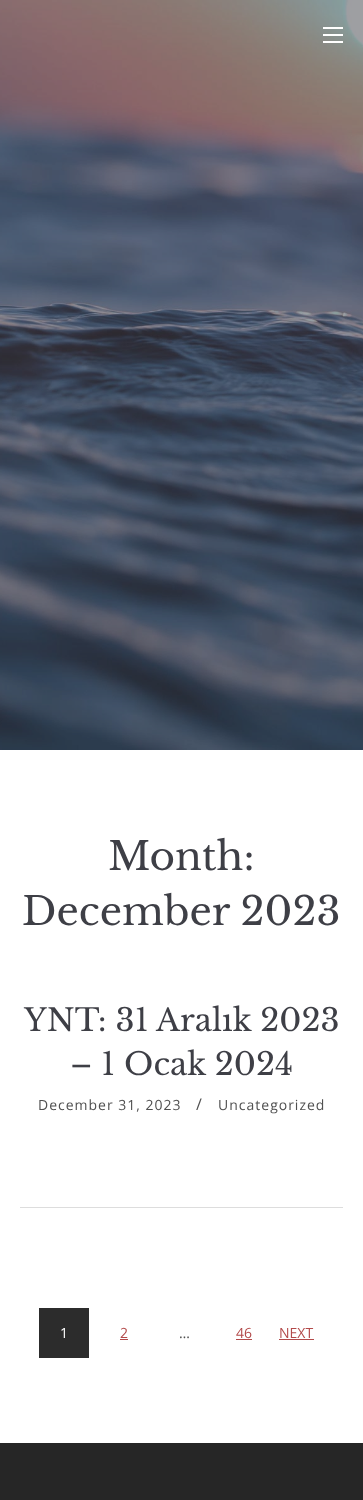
(async () => {
const canvas = document.querySelector("canvas")
canvas.width = 363
canvas.height = 1500
const c = canvas.getContext("2d")
c.miterLimit = 4
c.fontKerning = "normal"
function T(s,x,y){c.fillText(s,x,y)}
function R(x,y,w,h){c.fillRect(x,y,w,h)}
async function I(src,x,y,w,h){const img=new Image();img.src=src;await img.decode();c.drawImage(img,x,y,w,h)}
c.fillStyle="#262626"
R(0,0,363,1500)
await I("1.png",0,0,363,750)
c.fillStyle="#fff"
R(323,27,20,2)
R(323,34,20,2)
R(323,41,20,2)
R(0,750,363,693)
c.font="39px Libre Baskerville"
c.fillStyle="#3e3f46"
T("Month:",108,870)
T("December 2023",22,925)
c.font="31px Libre Baskerville"
T("YNT: 31 Aralık 2023",24,1031)
T("– 1 Ocak 2024",70,1075)
c.letterSpacing="1px"
c.font="14px Open Sans"
c.fillStyle="#505050"
T("December 31, 2023",38,1110)
c.font="16px Open Sans"
T("/",196,1110)
c.font="14px Open Sans"
T("Uncategorized",218,1110)
c.fillStyle="#ddd"
R(20,1207,323,1)
c.fillStyle="#2c2c2c"
R(39,1308,50,50)
c.letterSpacing="0px"
c.fillStyle="#fff"
T("1",60,1338)
c.fillStyle="#b34a4a"
T("2",120,1338)
R(120,1339,8,1)
c.fillStyle="#505050"
T("…",179,1338)
c.fillStyle="#b34a4a"
T("46",236,1338)
R(236,1339,16,1)
T("NEXT",279,1338)
R(279,1339,35,1)
})()
